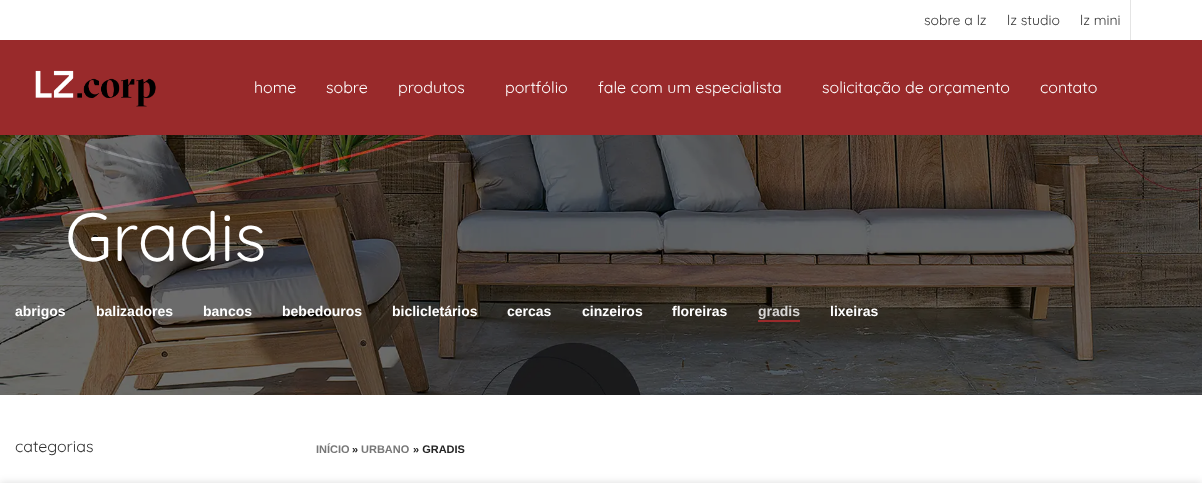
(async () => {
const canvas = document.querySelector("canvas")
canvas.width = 1202
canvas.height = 483
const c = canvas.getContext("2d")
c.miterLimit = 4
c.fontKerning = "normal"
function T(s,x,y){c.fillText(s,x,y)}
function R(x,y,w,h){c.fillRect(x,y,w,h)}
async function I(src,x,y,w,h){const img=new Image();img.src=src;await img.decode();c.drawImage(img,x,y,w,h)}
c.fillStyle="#fff"
R(0,0,1202,483)
c.font="14px Quicksand"
c.fillStyle="#333"
T("sobre a lz",924,25)
T("lz studio",1007,25)
T("lz mini",1080,25)
c.fillStyle="#e4e4e4"
R(1130,0,1,40)
c.fillStyle="#992a2b"
R(0,40,1202,95)
await I("1.png",35,70,121,37)
c.font="16px Quicksand"
c.fillStyle="#fff"
T("home",254,93)
T("sobre",326,93)
T("produtos",398,93)
T("portfólio",505,93)
T("fale com um especialista",598,93)
T("solicitação de orçamento",822,93)
T("contato",1040,93)
await I("2.png",0,135,1202,260)
c.font="68px Quicksand"
T("Gradis",65,261)
c.font="bold 14px Liberation Sans"
T("abrigos",15,316)
T("balizadores",96,316)
T("bancos",203,316)
T("bebedouros",282,316)
T("biclicletários",392,316)
T("cercas",507,316)
T("cinzeiros",582,316)
T("floreiras",672,316)
c.fillStyle="#d7d6d4"
T("gradis",758,316)
c.fillStyle="#992a2b"
R(758,320,42,2)
c.fillStyle="#fff"
T("lixeiras",830,316)
c.font="16px Quicksand"
c.fillStyle="#333"
T("categorias",15,452)
c.font="bold 11px Liberation Sans"
c.fillStyle="#777"
T("INÍCIO",316,453)
c.fillStyle="#242424"
T("»",352,453)
c.fillStyle="#777"
T("URBANO",361,453)
c.fillStyle="#242424"
T("» GRADIS",413,453)
c.fillStyle="#00000024"
c.filter="blur(4.5px)"
c.beginPath()
c.rect(0,483,1202,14)
c.fill()
c.filter="none"
})()
